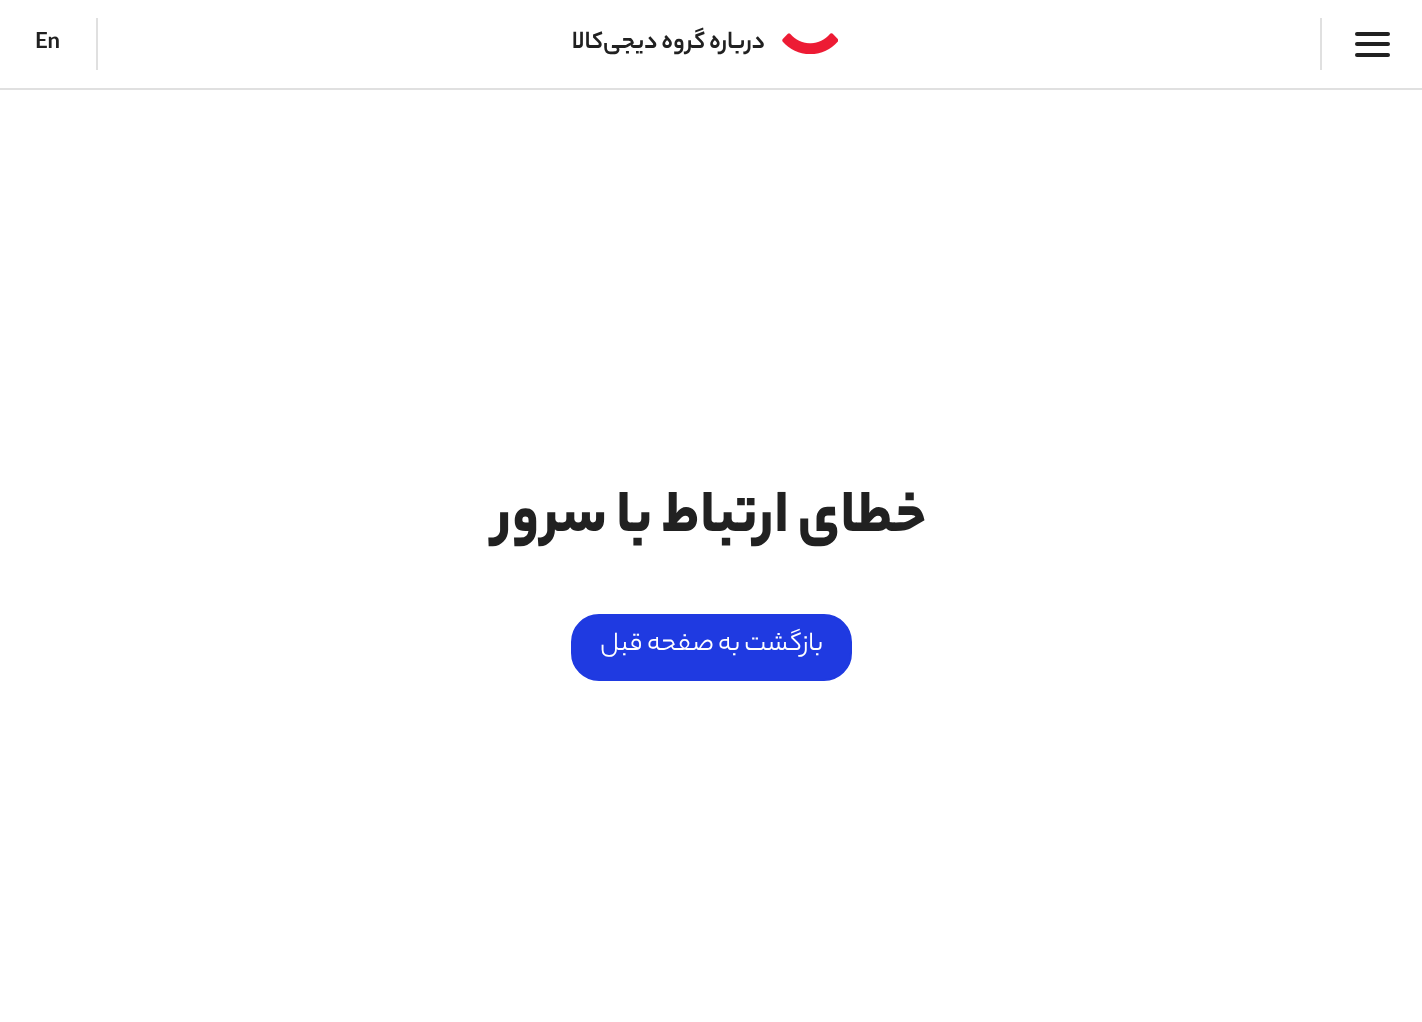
(async () => {
const canvas = document.querySelector("canvas")
canvas.width = 1422
canvas.height = 1022
const c = canvas.getContext("2d")
c.miterLimit = 4
c.fontKerning = "normal"
function T(s,x,y){c.fillText(s,x,y)}
function R(x,y,w,h){c.fillRect(x,y,w,h)}
function Q(x,y,w,h,r){c.beginPath();c.roundRect(x,y,w,h,r);c.fill()}
async function I(src,x,y,w,h){const img=new Image();img.src=src;await img.decode();c.drawImage(img,x,y,w,h)}
c.fillStyle="#fff"
R(0,0,1422,1022)
c.fillStyle="#212121"
Q(1355,32,35,4,2)
Q(1355,42,35,4,2)
Q(1355,53,35,4,2)
c.fillStyle="#e0e0e0"
R(1320,18,2,52)
await I("1.png",782,33,56,21)
c.direction="rtl"
c.font="bold 26.25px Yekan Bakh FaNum"
c.fillStyle="#212121"
T("درباره گروه دیجی‌کالا",765,48)
c.fillStyle="#e0e0e0"
R(96,18,2,52)
c.direction="ltr"
c.font="bold 24px Yekan Bakh FaNum"
c.fillStyle="#212121"
T("En",35,48)
c.fillStyle="#e0e0e0"
R(0,88,1422,2)
c.direction="rtl"
c.font="900 63px Yekan Bakh FaNum"
c.fillStyle="#212121"
T("خطای ارتباط با سرور",927,531)
c.fillStyle="#1f3ae1"
c.beginPath()
c.roundRect(572,615,279,65,27)
c.fill()
c.strokeStyle="#1f3ae1"
c.lineWidth=2
c.stroke()
c.font="28px Yekan Bakh FaNum"
c.fillStyle="#fff"
T("بازگشت به صفحه قبل",823,650)
})()
